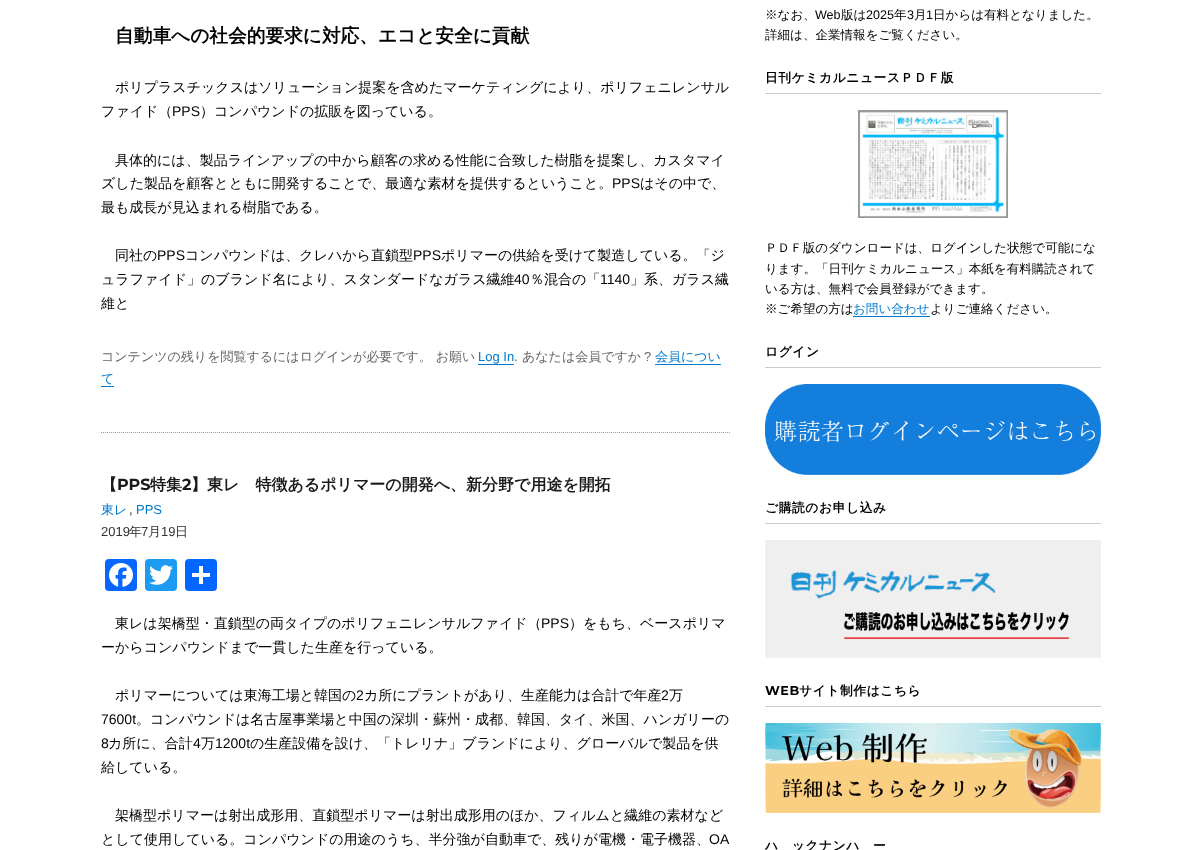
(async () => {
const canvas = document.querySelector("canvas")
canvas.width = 1201
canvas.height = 850
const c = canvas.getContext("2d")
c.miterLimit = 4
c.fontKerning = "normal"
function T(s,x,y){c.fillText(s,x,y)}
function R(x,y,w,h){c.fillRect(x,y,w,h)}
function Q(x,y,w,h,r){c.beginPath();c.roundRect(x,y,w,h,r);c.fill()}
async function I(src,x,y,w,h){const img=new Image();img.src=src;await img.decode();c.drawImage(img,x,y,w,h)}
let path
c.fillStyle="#fff"
R(0,0,1201,850)
path = new Path2D("M101 432.5h630")
c.strokeStyle="#999"
c.setLineDash([1,1])
c.stroke(path)
c.font="bold 18.7px WenQuanYi Zen Hei"
c.fillStyle="#000"
T("自動車への社会的要求に対応、エコと安全に貢献",115,42)
c.font="500 14px WenQuanYi Zen Hei"
T("ポリプラスチックスはソリューション提案を含めたマーケティングにより、ポリフェニレンサル",115,92)
T("ファイド（",101,116)
c.font="14px Liberation Sans"
T("PPS",172,116)
c.font="500 14px WenQuanYi Zen Hei"
T("）コンパウンドの拡販を図っている。",200,116)
T("具体的には、製品ラインアップの中から顧客の求める性能に合致した樹脂を提案し、カスタマイ",115,165)
T("ズした製品を顧客とともに開発することで、最適な素材を提供するということ。",101,188)
c.font="14px Liberation Sans"
T("PPS",612,188)
c.font="500 14px WenQuanYi Zen Hei"
T("はその中で、",640,188)
T("最も成長が見込まれる樹脂である。",101,212)
T("同社の",115,260)
c.font="14px Liberation Sans"
T("PPS",157,260)
c.font="500 14px WenQuanYi Zen Hei"
T("コンパウンドは、クレハから直鎖型",185,260)
c.font="14px Liberation Sans"
T("PPS",413,260)
c.font="500 14px WenQuanYi Zen Hei"
T("ポリマーの供給を受けて製造している。「ジ",441,260)
T("ュラファイド」のブランド名により、スタンダードなガラス繊維",101,284)
c.font="14px Liberation Sans"
T("40",514,284)
c.font="500 14px WenQuanYi Zen Hei"
T("％混合の「",530,284)
c.font="14px Liberation Sans"
T("1140",600,284)
c.font="500 14px WenQuanYi Zen Hei"
T("」系、ガラス繊",630,284)
T("維と",101,308)
c.font="500 13px WenQuanYi Zen Hei"
c.fillStyle="#666"
T("コンテンツの残りを閲覧するにはログインが必要です。 お願い",101,361)
c.font="13px Liberation Sans"
c.fillStyle="#007acc"
T("Log In",478,361)
R(478,364,36,1)
c.fillStyle="#666"
T(".",514,361)
c.font="500 13px WenQuanYi Zen Hei"
T("あなたは会員ですか",522,361)
c.font="13px Liberation Sans"
T("?",644,361)
c.font="500 13px WenQuanYi Zen Hei"
c.fillStyle="#007acc"
T("会員につい",655,361)
R(655,364,66,1)
T("て",101,383)
R(101,386,13,1)
c.font="bold 16px WenQuanYi Zen Hei"
c.fillStyle="#1a1a1a"
T("【",101,490)
c.font="100 16px Montserrat"
T("PPS",117,490)
c.font="bold 16px WenQuanYi Zen Hei"
T("特集",150,490)
c.font="100 16px Montserrat"
T("2",182,490)
c.font="bold 16px WenQuanYi Zen Hei"
T("】東レ　特徴あるポリマーの開発へ、新分野で用途を開拓",191,490)
c.font="500 13px WenQuanYi Zen Hei"
c.fillStyle="#007acc"
T("東レ",101,514)
c.font="13px Liberation Sans"
c.fillStyle="#333"
T(",",129,514)
c.fillStyle="#007acc"
T("PPS",136,514)
c.fillStyle="#333"
T("2019",101,536)
c.font="500 13px WenQuanYi Zen Hei"
T("年",129,536)
c.font="13px Liberation Sans"
T("7",141,536)
c.font="500 13px WenQuanYi Zen Hei"
T("月",148,536)
c.font="13px Liberation Sans"
T("19",161,536)
c.font="500 13px WenQuanYi Zen Hei"
T("日",175,536)
c.fillStyle="#0866ff"
Q(105,559,32,32,4)
await I("1.png",109,563,24,24)
c.fillStyle="#1d9bf0"
Q(145,559,32,32,4)
await I("2.png",149,565,24,20)
c.fillStyle="#0166ff"
Q(185,559,32,32,4)
c.fillStyle="#fff"
R(199,566,4,18)
R(192,573,18,4)
c.font="500 14px WenQuanYi Zen Hei"
c.fillStyle="#000"
T("東レは架橋型・直鎖型の両タイプのポリフェニレンサルファイド（",115,628)
c.font="14px Liberation Sans"
T("PPS",541,628)
c.font="500 14px WenQuanYi Zen Hei"
T("）をもち、ベースポリマ",569,628)
T("ーからコンパウンドまで一貫した生産を行っている。",101,652)
T("ポリマーについては東海工場と韓国の",115,700)
c.font="14px Liberation Sans"
T("2",356,700)
c.font="500 14px WenQuanYi Zen Hei"
T("カ所にプラントがあり、生産能力は合計で年産",364,700)
c.font="14px Liberation Sans"
T("2",661,700)
c.font="500 14px WenQuanYi Zen Hei"
T("万",669,700)
c.font="14px Liberation Sans"
T("7600t",101,724)
c.font="500 14px WenQuanYi Zen Hei"
T("。コンパウンドは名古屋事業場と中国の深圳・蘇州・成都、韓国、タイ、米国、ハンガリーの",136,724)
c.font="14px Liberation Sans"
T("8",101,748)
c.font="500 14px WenQuanYi Zen Hei"
T("カ所に、合計",108,748)
c.font="14px Liberation Sans"
T("4",193,748)
c.font="500 14px WenQuanYi Zen Hei"
T("万",201,748)
c.font="14px Liberation Sans"
T("1200t",215,748)
c.font="500 14px WenQuanYi Zen Hei"
T("の生産設備を設け、「トレリナ」ブランドにより、グローバルで製品を供",250,748)
T("給している。",101,772)
T("架橋型ポリマーは射出成形用、直鎖型ポリマーは射出成形用のほか、フィルムと繊維の素材など",115,820)
T("として使用している。コンパウンドの用途のうち、半分強が自動車で、残りが電機・電子機器、",101,844)
c.font="14px Liberation Sans"
T("OA",709,844)
c.font="500 12.55px WenQuanYi Zen Hei"
T("※なお、",765,19)
c.font="12.55px Liberation Sans"
T("Web",815,19)
c.font="500 12.55px WenQuanYi Zen Hei"
T("版は",841,19)
c.font="12.55px Liberation Sans"
T("2025",866,19)
c.font="500 12.55px WenQuanYi Zen Hei"
T("年",894,19)
c.font="12.55px Liberation Sans"
T("3",907,19)
c.font="500 12.55px WenQuanYi Zen Hei"
T("月",914,19)
c.font="12.55px Liberation Sans"
T("1",926,19)
c.font="500 12.55px WenQuanYi Zen Hei"
T("日からは有料となりました。",933,19)
T("詳細は、企業情報をご覧ください。",765,39)
c.fillStyle="#ccc"
R(765,93,336,1)
c.letterSpacing="0.6px"
c.font="bold 12.75px WenQuanYi Zen Hei"
c.fillStyle="#000"
T("日刊ケミカルニュースＰＤＦ版",765,82)
await I("3.png",858,110,150,108)
c.letterSpacing="0px"
c.font="500 12.55px WenQuanYi Zen Hei"
T("ＰＤＦ版のダウンロードは、ログインした状態で可能にな",765,252)
T("ります。「日刊ケミカルニュース」本紙を有料購読されて",765,273)
T("いる方は、無料で会員登録ができます。",765,293)
T("※ご希望の方は",765,313)
c.fillStyle="#007acc"
T("お問い合わせ",853,313)
R(853,316,77,1)
c.fillStyle="#000"
T("よりご連絡ください。",930,313)
c.fillStyle="#ccc"
R(765,367,336,1)
c.letterSpacing="0.6px"
c.font="bold 12.75px WenQuanYi Zen Hei"
c.fillStyle="#000"
T("ログイン",765,356)
await I("4.png",765,384,336,91)
c.fillStyle="#ccc"
R(765,523,336,1)
c.fillStyle="#000"
T("ご購読のお申し込み",765,512)
await I("5.png",765,540,336,118)
c.fillStyle="#ccc"
R(765,706,336,1)
c.font="100 12.75px Montserrat"
c.fillStyle="#000"
T("WEB",765,695)
c.font="bold 12.75px WenQuanYi Zen Hei"
T("サイト制作はこちら",799,695)
await I("6.png",765,723,336,90)
T("バックナンバー",765,850)
})()
